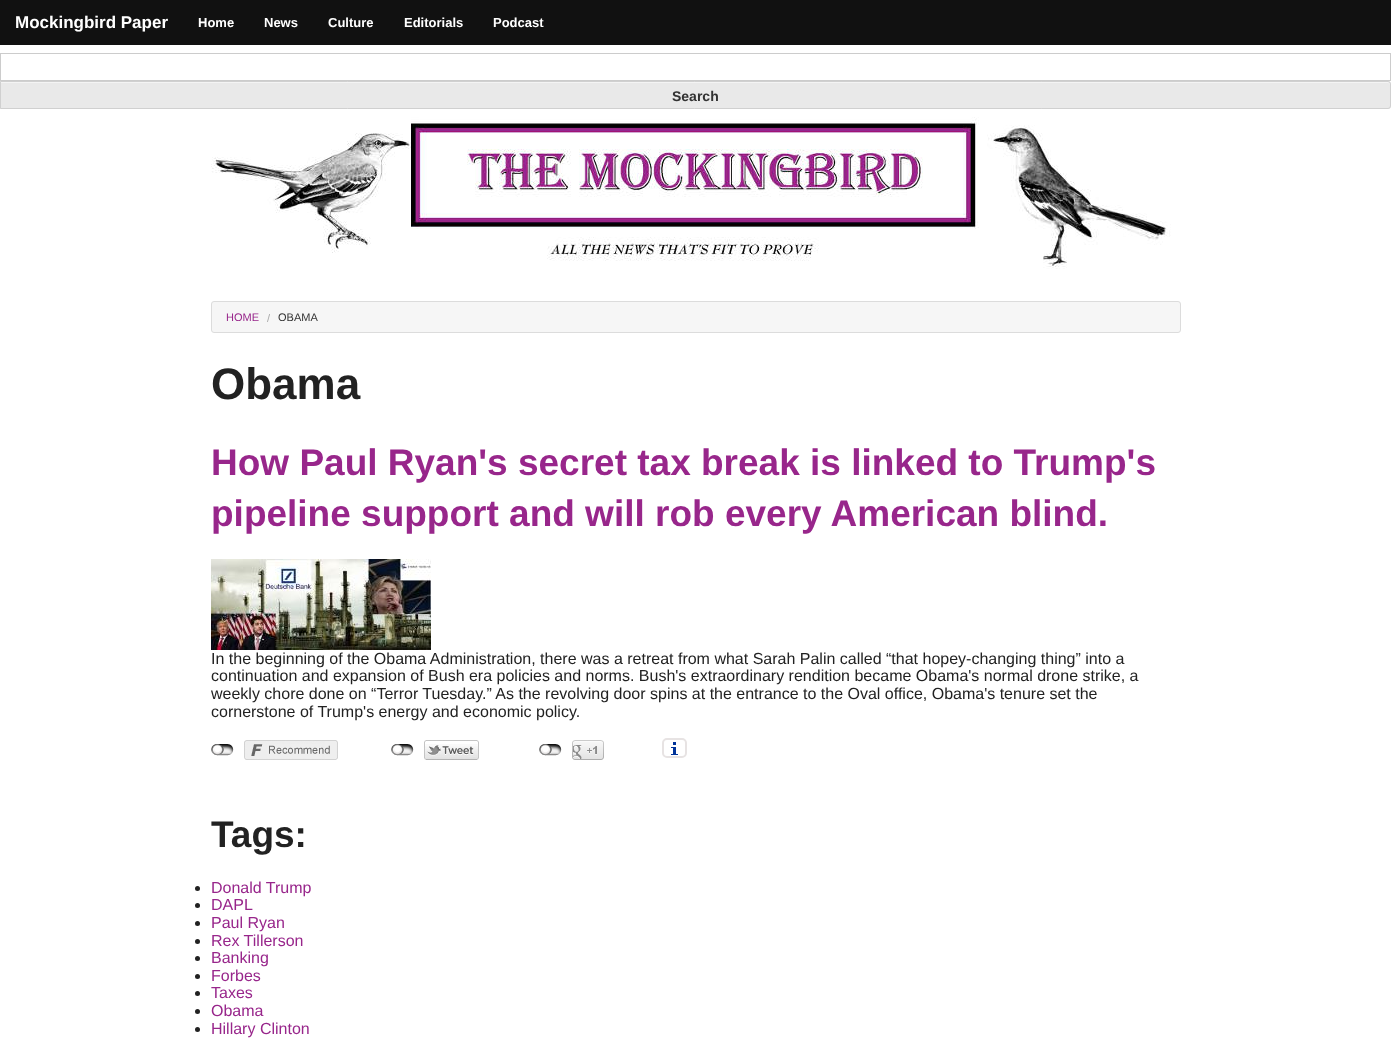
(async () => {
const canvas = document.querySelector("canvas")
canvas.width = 1391
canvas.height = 1047
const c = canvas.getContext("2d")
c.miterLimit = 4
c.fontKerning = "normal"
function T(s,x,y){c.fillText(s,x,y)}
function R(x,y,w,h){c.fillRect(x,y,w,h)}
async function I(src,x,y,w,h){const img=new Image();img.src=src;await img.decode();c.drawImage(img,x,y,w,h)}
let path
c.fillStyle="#fff"
R(0,0,1391,1047)
c.fillStyle="#111"
R(0,0,1391,45)
c.font="bold 17px Liberation Sans"
c.fillStyle="#fff"
T("Mockingbird Paper",15,28)
c.font="bold 13px Liberation Sans"
T("Home",198,27)
T("News",264,27)
T("Culture",328,27)
T("Editorials",404,27)
T("Podcast",493,27)
c.strokeStyle="#ccc"
c.strokeRect(.5,53.5,1390,27)
c.fillStyle="#e9e9e9"
c.beginPath()
c.roundRect(0,81,1391,28,[0,3,3,0])
c.fill()
c.fillStyle="#f4f4f4"
path = new Path2D("M1 83h1387c1 0 2 1 2 2v-1c0-1-1-2-2-2h-1387z")
c.fill(path)
c.beginPath()
c.roundRect(.5,81.5,1390,27,[0,2.5,2.5,0])
c.strokeStyle="#d0d0d0"
c.stroke()
c.font="bold 14px Liberation Sans"
c.fillStyle="#333"
T("Search",672,101)
await I("1.png",211,117,960,152)
c.fillStyle="#f6f6f6"
c.beginPath()
c.roundRect(211.5,301.5,969,31,2.5)
c.fill()
c.strokeStyle="#dcdcdc"
c.stroke()
c.font="11px Liberation Sans"
c.fillStyle="#98268b"
T("HOME",226,321)
c.fillStyle="#aaa"
T("/",267,322)
c.fillStyle="#333"
T("OBAMA",278,321)
c.font="bold 44px Liberation Sans"
c.fillStyle="#222"
T("Obama",211,399)
c.font="bold 37px Liberation Sans"
c.fillStyle="#98268b"
T("How Paul Ryan's secret tax break is linked to Trump's",211,475)
T("pipeline support and will rob every American blind.",211,526)
await I("2.png",211,559,220,91)
c.font="16px Liberation Sans"
c.fillStyle="#222"
T("In the beginning of the Obama Administration, there was a retreat from what Sarah Palin called “that hopey-changing thing” into a",211,664)
T("continuation and expansion of Bush era policies and norms. Bush's extraordinary rendition became Obama's normal drone strike, a",211,681)
T("weekly chore done on “Terror Tuesday.” As the revolving door spins at the entrance to the Oval office, Obama's tenure set the",211,699)
T("cornerstone of Trump's energy and economic policy.",211,717)
await I("3.png",211,744,23,12)
await I("4.png",244,740,94,20)
await I("3.png",391,744,23,12)
await I("5.png",424,740,55,20)
await I("3.png",539,744,23,12)
await I("6.png",572,740,32,20)
await I("7.png",671,742,7,13)
c.beginPath()
c.roundRect(663,739,23,18,4)
c.strokeStyle="#e7e3e3"
c.lineWidth=2
c.stroke()
c.font="bold 37px Liberation Sans"
T("Tags:",211,847)
c.beginPath()
c.arc(197.5,888.5,2.5,0,7)
c.fill()
c.font="16px Liberation Sans"
c.fillStyle="#98268b"
T("Donald Trump",211,893)
c.fillStyle="#222"
c.beginPath()
c.arc(197.5,905.5,2.5,0,7)
c.fill()
c.fillStyle="#98268b"
T("DAPL",211,910)
c.fillStyle="#222"
c.beginPath()
c.arc(197.5,923.5,2.5,0,7)
c.fill()
c.fillStyle="#98268b"
T("Paul Ryan",211,928)
c.fillStyle="#222"
c.beginPath()
c.arc(197.5,941.5,2.5,0,7)
c.fill()
c.fillStyle="#98268b"
T("Rex Tillerson",211,946)
c.fillStyle="#222"
c.beginPath()
c.arc(197.5,958.5,2.5,0,7)
c.fill()
c.fillStyle="#98268b"
T("Banking",211,963)
c.fillStyle="#222"
c.beginPath()
c.arc(197.5,976.5,2.5,0,7)
c.fill()
c.fillStyle="#98268b"
T("Forbes",211,981)
c.fillStyle="#222"
c.beginPath()
c.arc(197.5,993.5,2.5,0,7)
c.fill()
c.fillStyle="#98268b"
T("Taxes",211,998)
c.fillStyle="#222"
c.beginPath()
c.arc(197.5,1011.5,2.5,0,7)
c.fill()
c.fillStyle="#98268b"
T("Obama",211,1016)
c.fillStyle="#222"
c.beginPath()
c.arc(197.5,1029.5,2.5,0,7)
c.fill()
c.fillStyle="#98268b"
T("Hillary Clinton",211,1034)
})()
